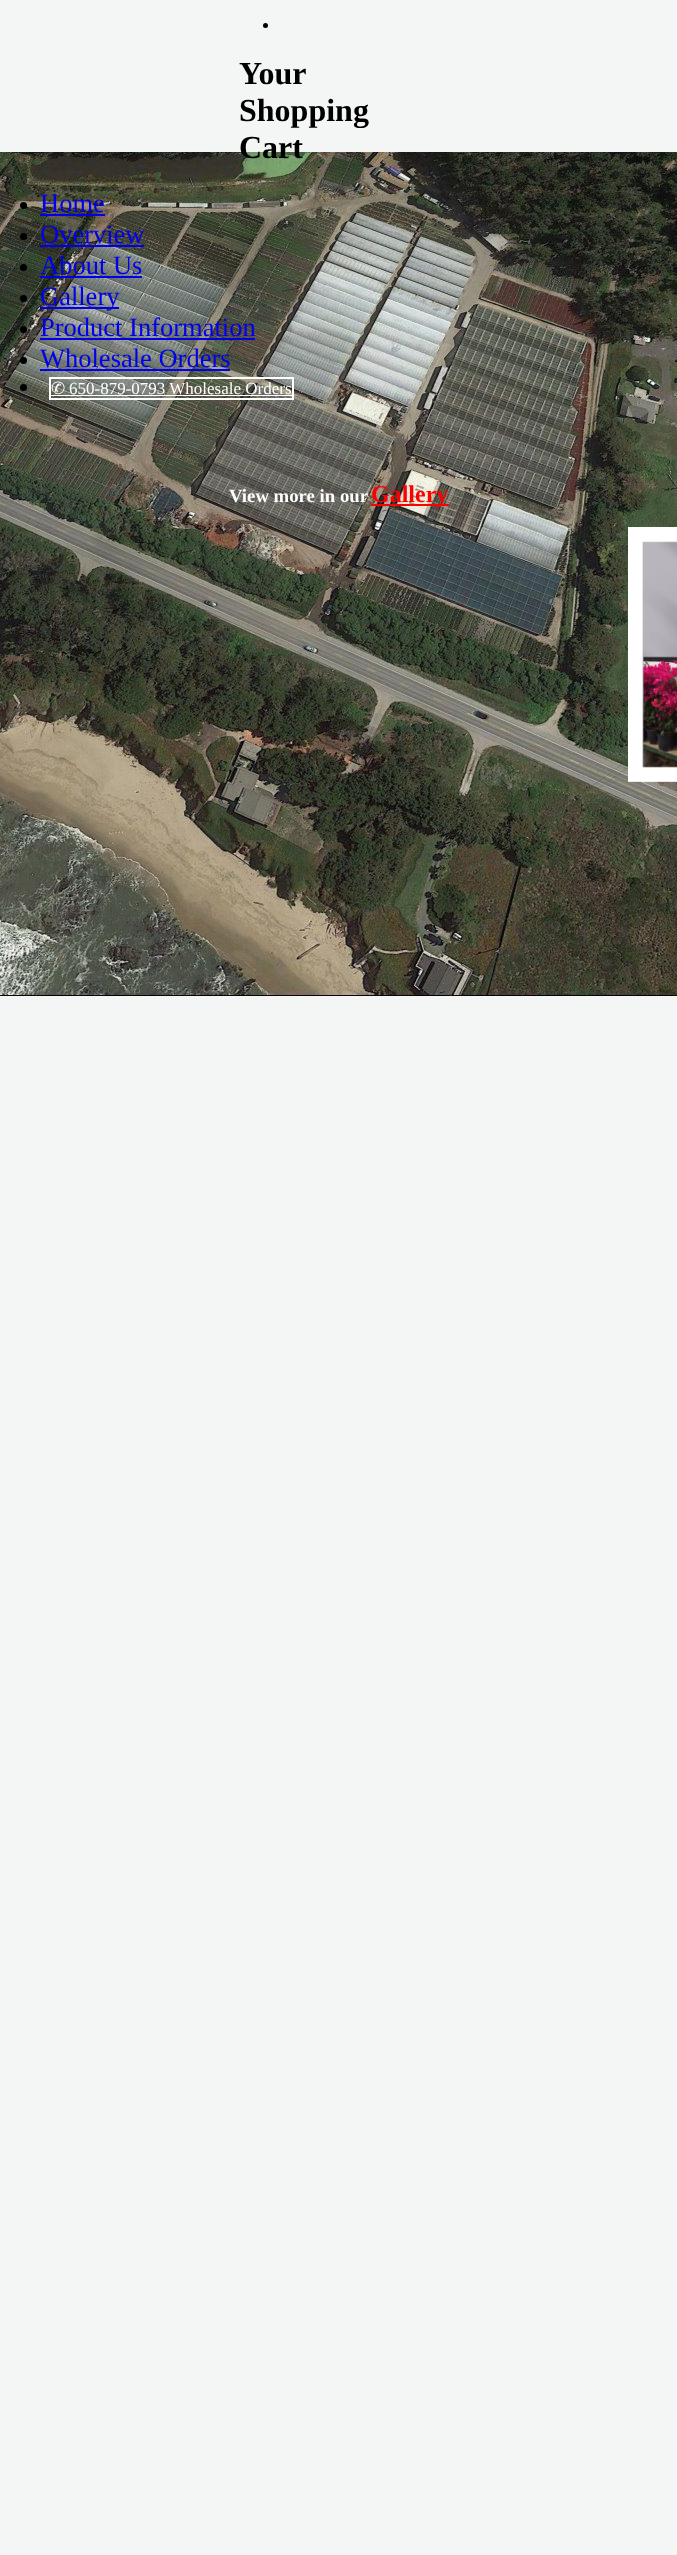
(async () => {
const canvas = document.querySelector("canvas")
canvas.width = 677
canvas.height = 2555
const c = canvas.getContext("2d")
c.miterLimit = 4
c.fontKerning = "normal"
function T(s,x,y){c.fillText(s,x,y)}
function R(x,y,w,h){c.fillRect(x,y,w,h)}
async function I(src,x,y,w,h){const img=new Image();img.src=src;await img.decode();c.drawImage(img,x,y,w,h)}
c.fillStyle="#f4f5f5"
R(0,0,677,2555)
await I("1.png",0,152,677,844)
c.fillStyle="#000"
c.beginPath()
c.arc(265.5,25.5,2.5,0,7)
c.fill()
c.font="bold 32px Liberation Serif"
T("Your",239,84)
T("Shopping",239,121)
T("Cart",239,158)
c.beginPath()
c.arc(23.5,205.5,3.5,0,7)
c.fill()
c.font="26.5px Liberation Serif"
c.fillStyle="#00e"
T("Home",40,212)
R(40,214,65,2)
c.fillStyle="#000"
c.beginPath()
c.arc(23.5,236.5,3.5,0,7)
c.fill()
c.fillStyle="#00e"
T("Overview",40,243)
R(40,245,104,2)
c.fillStyle="#000"
c.beginPath()
c.arc(23.5,267.5,3.5,0,7)
c.fill()
c.fillStyle="#00e"
T("About Us",40,274)
R(40,276,102,2)
c.fillStyle="#000"
c.beginPath()
c.arc(23.5,298.5,3.5,0,7)
c.fill()
c.fillStyle="#00e"
R(40,307,79,2)
T("Gallery",40,305)
c.fillStyle="#000"
c.beginPath()
c.arc(23.5,329.5,3.5,0,7)
c.fill()
c.fillStyle="#00e"
T("Product Information",40,336)
R(40,338,215,2)
c.fillStyle="#000"
c.beginPath()
c.arc(23.5,360.5,3.5,0,7)
c.fill()
c.fillStyle="#00e"
T("Wholesale Orders",40,367)
R(40,369,190,2)
c.fillStyle="#000"
c.beginPath()
c.arc(23.5,387.5,3.5,0,7)
c.fill()
c.beginPath()
c.rect(50,378,243,21)
c.strokeStyle="#fff"
c.lineWidth=2
c.stroke()
c.font="17px DejaVu Sans"
c.fillStyle="#fff"
T("✆",51,394)
c.font="17px Liberation Serif"
T("650-879-0793 Wholesale Orders",69,394)
R(51,395,241,1)
c.font="bold 18.75px Liberation Serif"
T("View more in our",229,502)
c.fillStyle="#f00"
R(371,504,78,2)
c.font="bold 24px Liberation Serif"
T("Gallery",371,502)
await I("2.png",628,527,49,255)
})()
